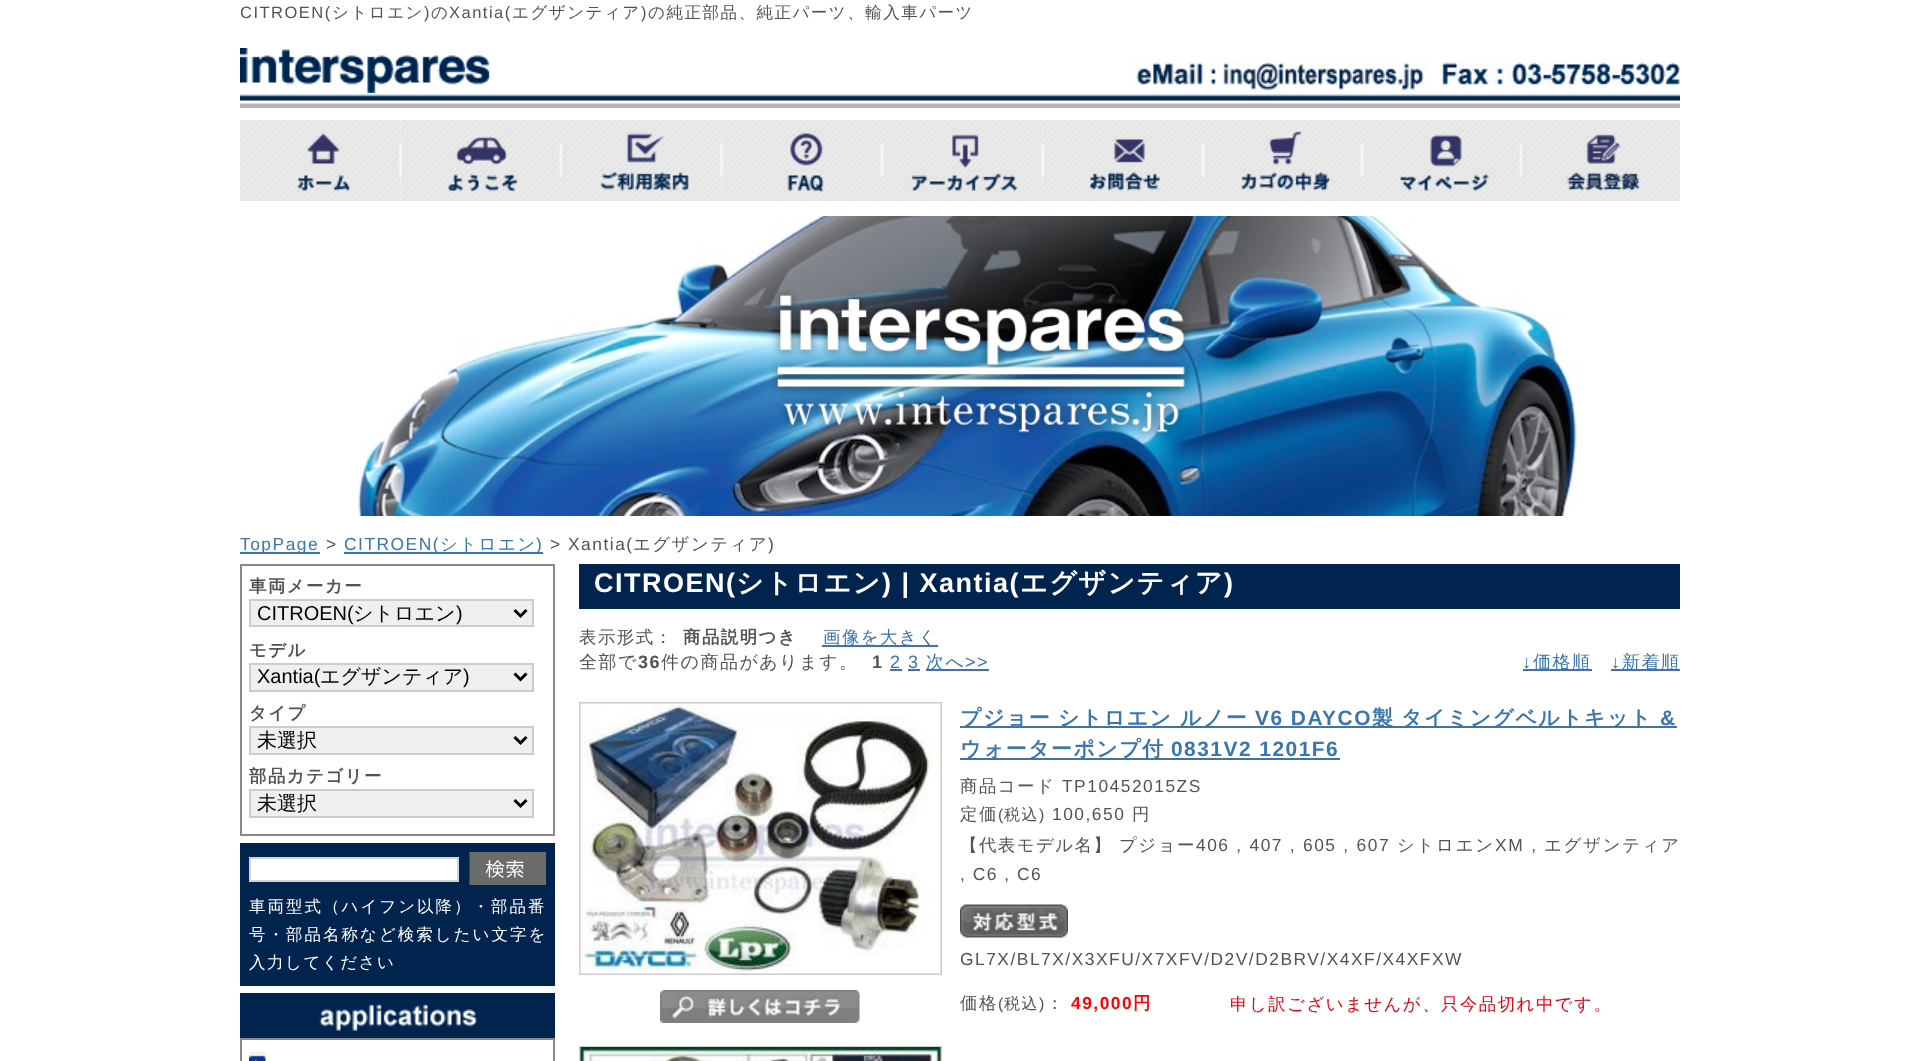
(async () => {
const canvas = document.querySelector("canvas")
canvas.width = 1920
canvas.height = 1061
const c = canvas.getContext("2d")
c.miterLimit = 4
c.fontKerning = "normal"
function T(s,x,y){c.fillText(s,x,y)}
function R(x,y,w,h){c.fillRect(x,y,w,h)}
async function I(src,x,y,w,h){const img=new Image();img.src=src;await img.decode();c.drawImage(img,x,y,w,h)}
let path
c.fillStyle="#fff"
R(0,0,1920,1061)
c.letterSpacing="1.5px"
c.font="16.5px Liberation Sans"
c.fillStyle="#535353"
T("CITROEN(",240,18)
c.font="500 16.5px WenQuanYi Zen Hei"
T("シトロエン",332,18)
c.font="16.5px Liberation Sans"
T(")",424,18)
c.font="500 16.5px WenQuanYi Zen Hei"
T("の",431,18)
c.font="16.5px Liberation Sans"
T("Xantia(",449,18)
c.font="500 16.5px WenQuanYi Zen Hei"
T("エグザンティア",512,18)
c.font="16.5px Liberation Sans"
T(")",641,18)
c.font="500 16.5px WenQuanYi Zen Hei"
T("の純正部品、純正パーツ、輸入車パーツ",648,18)
await I("1.png",240,61,1440,47)
await I("2.png",240,48,250,45)
await I("3.png",240,120,161,81)
await I("4.png",400,120,161,81)
await I("5.png",561,120,161,81)
await I("6.png",721,120,161,81)
await I("7.png",882,120,161,81)
await I("8.png",1042,120,161,81)
await I("9.png",1203,120,159,81)
await I("10.png",1362,120,159,81)
await I("11.png",1521,120,159,81)
await I("12.png",358,216,1226,300)
await I("13.png",771,290,420,149)
c.fillStyle="#3a75af"
R(240,552,80,2)
c.font="17.4px Liberation Sans"
T("TopPage",240,550)
c.fillStyle="#535353"
T(">",326,550)
c.fillStyle="#3a75af"
R(344,552,199,2)
T("CITROEN(",344,550)
c.font="500 17.4px WenQuanYi Zen Hei"
T("シトロエン",440,550)
c.font="17.4px Liberation Sans"
T(")",536,550)
c.fillStyle="#535353"
T("> Xantia(",550,550)
c.font="500 17.4px WenQuanYi Zen Hei"
T("エグザンティア",633,550)
c.font="17.4px Liberation Sans"
T(")",768,550)
c.strokeStyle="#898989"
c.lineWidth=2
c.strokeRect(241,565,313,270)
c.font="bold 17.4px WenQuanYi Zen Hei"
T("車両メーカー",249,592)
c.fillStyle="#efefef"
c.beginPath()
c.rect(250,600,283,26)
c.fill()
c.strokeStyle="#ccc"
c.stroke()
path = new Path2D("M514.5 610l6 6l6-6")
c.strokeStyle="#000"
c.lineWidth=3
c.stroke(path)
c.letterSpacing="0px"
c.font="20px Liberation Sans"
c.fillStyle="#000"
T("CITROEN(",257,620)
c.font="500 20px WenQuanYi Zen Hei"
T("シトロエン",353,620)
c.font="20px Liberation Sans"
T(")",456,620)
c.letterSpacing="1.5px"
c.font="bold 17.4px WenQuanYi Zen Hei"
c.fillStyle="#535353"
T("モデル",249,656)
c.fillStyle="#efefef"
c.beginPath()
c.rect(250,664,283,27)
c.fill()
c.strokeStyle="#ccc"
c.lineWidth=2
c.stroke()
path = new Path2D("M514.5 673.5l6 6l6-6")
c.strokeStyle="#000"
c.lineWidth=3
c.stroke(path)
c.letterSpacing="0px"
c.font="20px Liberation Sans"
c.fillStyle="#000"
T("Xantia(",257,683)
c.font="500 20px WenQuanYi Zen Hei"
T("エグザンティア",320,683)
c.font="20px Liberation Sans"
T(")",463,683)
c.letterSpacing="1.5px"
c.font="bold 17.4px WenQuanYi Zen Hei"
c.fillStyle="#535353"
T("タイプ",249,719)
c.fillStyle="#efefef"
c.beginPath()
c.rect(250,727,283,27)
c.fill()
c.strokeStyle="#ccc"
c.lineWidth=2
c.stroke()
path = new Path2D("M514.5 737l6 6l6-6")
c.strokeStyle="#000"
c.lineWidth=3
c.stroke(path)
c.letterSpacing="0px"
c.font="500 20px WenQuanYi Zen Hei"
c.fillStyle="#000"
T("未選択",257,747)
c.letterSpacing="1.5px"
c.font="bold 17.4px WenQuanYi Zen Hei"
c.fillStyle="#535353"
T("部品カテゴリー",249,782)
c.fillStyle="#efefef"
c.beginPath()
c.rect(250,790,283,27)
c.fill()
c.strokeStyle="#ccc"
c.lineWidth=2
c.stroke()
path = new Path2D("M514.5 800l6 6l6-6")
c.strokeStyle="#000"
c.lineWidth=3
c.stroke(path)
c.letterSpacing="0px"
c.font="500 20px WenQuanYi Zen Hei"
c.fillStyle="#000"
T("未選択",257,810)
c.fillStyle="#00244d"
R(240,843,315,143)
c.fillStyle="#fff"
c.beginPath()
c.rect(250,858,208,23)
c.fill()
c.strokeStyle="#d3d3d3"
c.lineWidth=2
c.stroke()
await I("14.png",469,852,77,33)
c.letterSpacing="2px"
c.font="500 16.5px WenQuanYi Zen Hei"
T("車両型式（ハイフン以降）・部品番",249,912)
T("号・部品名称など検索したい文字を",249,940)
c.letterSpacing="1.5px"
T("入力してください",249,968)
await I("15.png",240,993,315,45)
c.strokeStyle="#8a8a8a"
c.strokeRect(241,1039,313,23)
await I("16.png",249,1051,17,10)
c.fillStyle="#00244d"
R(579,564,1101,45)
c.font="bold 27px Liberation Sans"
c.fillStyle="#fff"
T("CITROEN(",594,592)
c.font="bold 27px WenQuanYi Zen Hei"
T("シトロエン",736,592)
c.font="bold 27px Liberation Sans"
T(") | Xantia(",882,592)
c.font="bold 27px WenQuanYi Zen Hei"
T("エグザンティア",1020,592)
c.font="bold 27px Liberation Sans"
T(")",1224,592)
c.font="500 17.4px WenQuanYi Zen Hei"
c.fillStyle="#535353"
T("表示形式：",579,643)
c.font="bold 17.4px WenQuanYi Zen Hei"
T("商品説明つき",683,643)
c.fillStyle="#3a75af"
R(822,645,116,2)
c.font="500 17.4px WenQuanYi Zen Hei"
T("画像を大きく",823,643)
c.font="500 18px WenQuanYi Zen Hei"
c.fillStyle="#535353"
T("全部で",579,668)
c.font="bold 18px Liberation Sans"
T("36",638,668)
c.font="500 18px WenQuanYi Zen Hei"
T("件の商品があります。",661,668)
c.font="bold 18px Liberation Sans"
T("1",872,668)
c.font="18px Liberation Sans"
c.fillStyle="#3a75af"
T("2 3",890,668)
R(890,669,12,2)
R(926,669,63,2)
c.font="500 18px WenQuanYi Zen Hei"
T("次へ",926,668)
c.font="18px Liberation Sans"
T(">>",965,668)
R(908,669,12,2)
T("↓",1522,668)
R(1523,669,69,2)
c.font="500 18px WenQuanYi Zen Hei"
T("価格順",1533,668)
c.font="18px Liberation Sans"
T("↓",1611,668)
R(1611,669,69,2)
c.font="500 18px WenQuanYi Zen Hei"
T("新着順",1622,668)
c.strokeStyle="#ccc"
c.strokeRect(580,703,361,271)
await I("17.png",580,703,361,271)
await I("18.png",660,990,200,33)
R(960,726,717,2)
c.font="bold 20.9px WenQuanYi Zen Hei"
T("プジョー",960,725)
T("シトロエン",1058,725)
T("ルノー",1180,725)
c.font="bold 20.9px Liberation Sans"
T("V6 DAYCO",1255,725)
c.font="bold 20.9px WenQuanYi Zen Hei"
T("製",1372,725)
T("タイミングベルトキット",1401,725)
c.font="bold 20.9px Liberation Sans"
T("&",1660,725)
R(960,758,380,2)
c.font="bold 20.9px WenQuanYi Zen Hei"
T("ウォーターポンプ付",960,756)
c.font="bold 20.9px Liberation Sans"
T("0831V2 1201F6",1171,756)
c.font="500 17.4px WenQuanYi Zen Hei"
c.fillStyle="#535353"
T("商品コード",960,792)
c.font="17.4px Liberation Sans"
T("TP10452015ZS",1062,792)
c.font="500 17.4px WenQuanYi Zen Hei"
T("定価",960,820)
c.font="16px Liberation Sans"
T("(",998,820)
c.font="500 16px WenQuanYi Zen Hei"
T("税込",1004,820)
c.font="16px Liberation Sans"
T(")",1039,820)
c.font="17.4px Liberation Sans"
T("100,650",1052,820)
c.font="500 17.4px WenQuanYi Zen Hei"
T("円",1132,820)
T("【代表モデル名】 プジョー",960,851)
c.wordSpacing="0.5px"
c.font="17.4px Liberation Sans"
T("406 , 407 , 605 , 607",1196,851)
c.letterSpacing="1.75px"
c.wordSpacing="0px"
c.font="500 17.4px WenQuanYi Zen Hei"
T("シトロエン",1397,851)
c.font="17.4px Liberation Sans"
T("XM ,",1495,851)
c.font="500 17.4px WenQuanYi Zen Hei"
T("エグザンティア",1544,851)
c.letterSpacing="1.5px"
c.font="17.4px Liberation Sans"
T(", C6 , C6",960,880)
await I("19.png",960,904,108,34)
T("GL7X/BL7X/X3XFU/X7XFV/D2V/D2BRV/X4XF/X4XFXW",960,965)
c.font="500 17.4px WenQuanYi Zen Hei"
T("価格",960,1009)
c.font="16px Liberation Sans"
T("(",998,1009)
c.font="500 16px WenQuanYi Zen Hei"
T("税込",1004,1009)
c.font="16px Liberation Sans"
T(")",1039,1009)
c.font="500 17.4px WenQuanYi Zen Hei"
T("：",1046,1009)
c.font="bold 17.4px Liberation Sans"
c.fillStyle="#f00"
T("49,000",1071,1009)
c.font="bold 17.4px WenQuanYi Zen Hei"
T("円",1133,1009)
c.font="500 17.4px WenQuanYi Zen Hei"
c.fillStyle="#e60011"
T("申し訳ございませんが、只今品切れ中です。",1230,1010)
c.strokeRect(580,1047,361,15)
await I("20.png",580,1047,361,14)
})()
